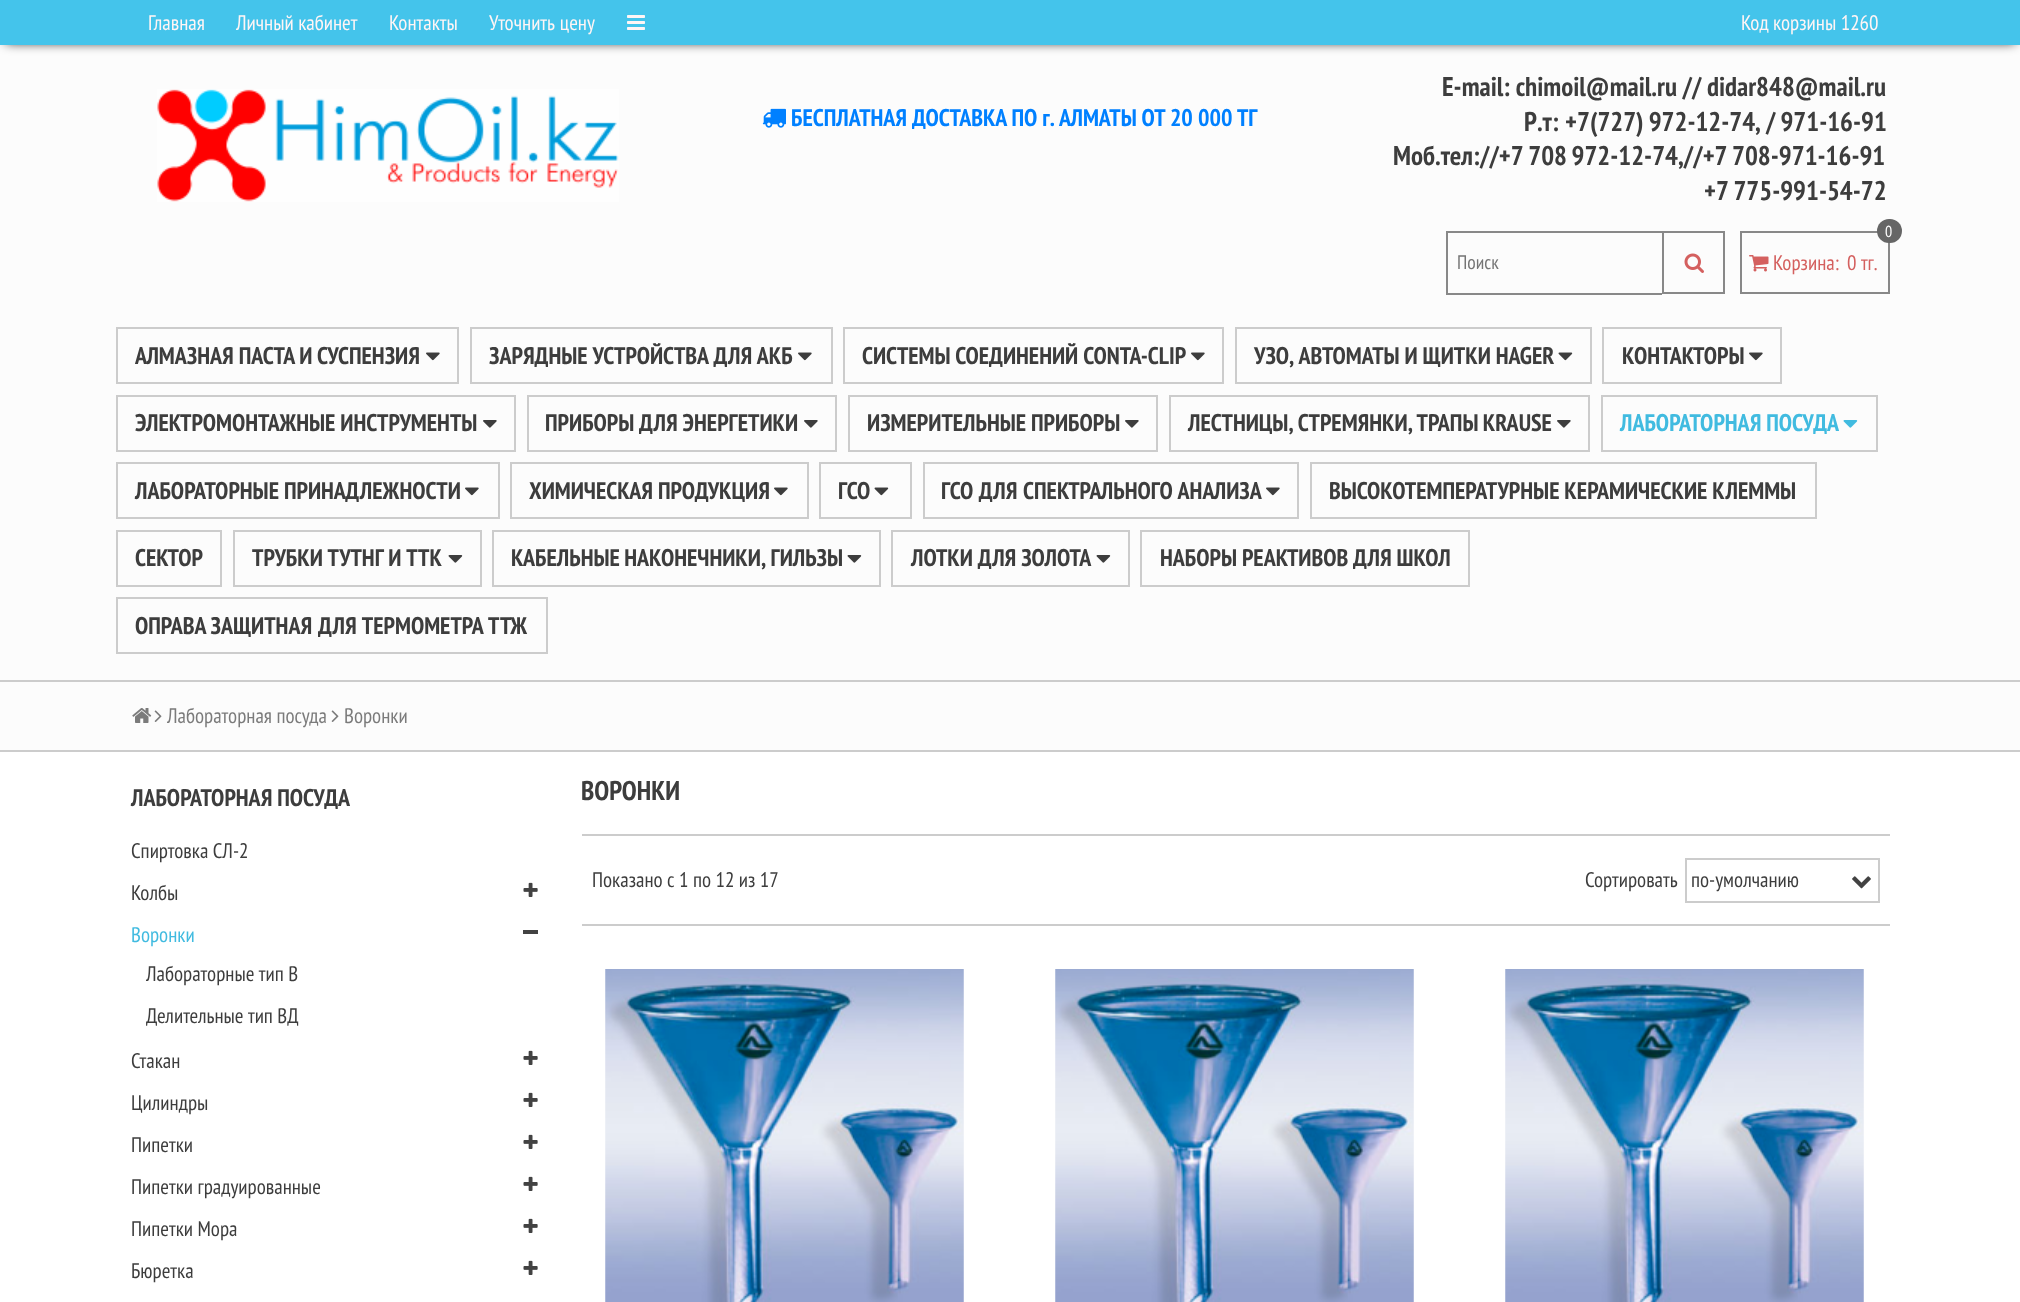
(async () => {
const canvas = document.querySelector("canvas")
canvas.width = 2020
canvas.height = 1302
const c = canvas.getContext("2d")
c.miterLimit = 4
c.fontKerning = "normal"
function T(s,x,y){c.fillText(s,x,y)}
function R(x,y,w,h){c.fillRect(x,y,w,h)}
function Q(x,y,w,h,r){c.beginPath();c.roundRect(x,y,w,h,r);c.fill()}
async function I(src,x,y,w,h){const img=new Image();img.src=src;await img.decode();c.drawImage(img,x,y,w,h)}
c.fillStyle="#fcfcfc"
R(0,0,2020,1302)
c.fillStyle="#000"
c.filter="blur(6px)"
c.beginPath()
c.rect(6,9,2009,33)
c.fill()
c.filter="none"
c.fillStyle="#44c4eb"
R(0,0,2020,45)
c.font="21px PT Sans Narrow"
c.fillStyle="#fff5f5"
T("Главная",148,30)
T("Личный кабинет",236,30)
T("Контакты",389,30)
c.wordSpacing="1px"
T("Уточнить цену",489,30)
await I("1.png",627,15,18,15)
c.wordSpacing="0px"
T("Код корзины 1260",1741,30)
await I("2.png",157,89,462,113)
await I("3.png",762,108,24,20)
c.wordSpacing="0.25px"
c.font="bold 24px PT Sans Narrow"
c.fillStyle="#0080ff"
T("БЕСПЛАТНАЯ ДОСТАВКА ПО г. АЛМАТЫ ОТ 20 000 ТГ",791,126)
c.wordSpacing="0px"
c.font="bold 27px PT Sans Narrow"
c.fillStyle="#3d3d3d"
T("E-mail: chimoil@mail.ru // didar848@mail.ru",1442,96)
T("Р.т:",1524,131)
c.wordSpacing="-0.5px"
T("+7(727) 972-12-74, / 971-16-91",1565,131)
c.wordSpacing="-1px"
T("Моб.тел://+7 708 972-12-74,//+7 708-971-16-91",1393,165)
T("+7 775-991-54-72",1704,200)
c.fillStyle="#888"
R(1446,231,216,2)
R(1446,293,216,2)
R(1446,231,2,63)
c.wordSpacing="0px"
c.font="19.5px PT Sans Narrow"
c.fillStyle="#757575"
T("Поиск",1457,269)
c.strokeStyle="#888"
c.lineWidth=2
c.strokeRect(1663,232,61,61)
await I("4.png",1684,253,20,20)
c.strokeRect(1741,232,148,61)
await I("5.png",1749,255,20,17)
c.font="21px PT Sans Narrow"
c.fillStyle="#d4605f"
T("Корзина:",1773,270)
c.fillStyle="#666"
Q(1877,219,25,24,12)
c.font="16px PT Sans Narrow"
c.fillStyle="#fff"
T("0",1885,237)
c.font="21px PT Sans Narrow"
c.fillStyle="#d4605f"
T("0 тг.",1847,270)
c.strokeStyle="#ccc"
c.strokeRect(117,328,341,55)
c.font="bold 24px PT Sans Narrow"
c.fillStyle="#3d3d3d"
T("АЛМАЗНАЯ ПАСТА И СУСПЕНЗИЯ",135,364)
await I("6.png",426,352,14,9)
c.strokeRect(471,328,361,55)
c.wordSpacing="0.5px"
T("ЗАРЯДНЫЕ УСТРОЙСТВА ДЛЯ АКБ",489,364)
await I("6.png",798,352,14,9)
c.strokeRect(844,328,379,55)
c.wordSpacing="0px"
T("СИСТЕМЫ СОЕДИНЕНИЙ CONTA-CLIP",862,364)
await I("6.png",1191,352,14,9)
c.strokeRect(1236,328,355,55)
T("УЗО, АВТОМАТЫ И ЩИТКИ HAGER",1254,364)
await I("7.png",1558,352,15,9)
c.strokeRect(1603,328,178,55)
T("КОНТАКТОРЫ",1622,364)
await I("6.png",1749,352,14,9)
c.strokeRect(117,396,398,55)
T("ЭЛЕКТРОМОНТАЖНЫЕ ИНСТРУМЕНТЫ",135,431)
await I("8.png",483,420,14,8)
c.strokeRect(528,396,308,55)
T("ПРИБОРЫ ДЛЯ ЭНЕРГЕТИКИ",545,431)
await I("8.png",804,420,14,8)
c.strokeRect(849,396,308,55)
T("ИЗМЕРИТЕЛЬНЫЕ ПРИБОРЫ",867,431)
await I("8.png",1125,420,14,8)
c.strokeRect(1170,396,419,55)
c.wordSpacing="-0.5px"
T("ЛЕСТНИЦЫ, СТРЕМЯНКИ, ТРАПЫ KRAUSE",1188,431)
await I("8.png",1557,420,14,8)
c.strokeRect(1602,396,275,55)
c.wordSpacing="0px"
c.fillStyle="#41bbe0"
T("ЛАБОРАТОРНАЯ ПОСУДА",1620,431)
await I("9.png",1843,420,15,8)
c.strokeRect(117,463,382,55)
c.fillStyle="#3d3d3d"
T("ЛАБОРАТОРНЫЕ ПРИНАДЛЕЖНОСТИ",135,499)
await I("6.png",465,487,14,9)
c.strokeRect(511,463,297,55)
T("ХИМИЧЕСКАЯ ПРОДУКЦИЯ",529,499)
await I("6.png",774,487,14,9)
c.strokeRect(820,463,91,55)
T("ГСО",838,499)
await I("7.png",874,487,15,9)
c.strokeRect(924,463,374,55)
c.wordSpacing="1px"
T("ГСО ДЛЯ СПЕКТРАЛЬНОГО АНАЛИЗА",941,499)
await I("6.png",1266,487,14,9)
c.strokeRect(1311,463,505,55)
c.wordSpacing="0px"
T("ВЫСОКОТЕМПЕРАТУРНЫЕ КЕРАМИЧЕСКИЕ КЛЕММЫ",1329,499)
c.strokeRect(117,531,104,55)
T("СЕКТОР",135,566)
c.strokeRect(234,531,247,55)
c.wordSpacing="0.5px"
T("ТРУБКИ ТУТНГ И ТТК",252,566)
await I("10.png",448,555,15,8)
c.strokeRect(493,531,387,55)
c.wordSpacing="-0.5px"
T("КАБЕЛЬНЫЕ НАКОНЕЧНИКИ, ГИЛЬЗЫ",511,566)
await I("10.png",847,555,15,8)
c.strokeRect(892,531,237,55)
c.wordSpacing="0px"
T("ЛОТКИ ДЛЯ ЗОЛОТА",911,566)
await I("10.png",1096,555,15,8)
c.strokeRect(1141,531,328,55)
T("НАБОРЫ РЕАКТИВОВ ДЛЯ ШКОЛ",1160,566)
c.strokeRect(117,598,430,55)
T("ОПРАВА ЗАЩИТНАЯ",135,634)
c.wordSpacing="1px"
T("ДЛЯ ТЕРМОМЕТРА ТТЖ",318,634)
c.fillStyle="#ccc"
R(0,680,2020,2)
R(0,750,2020,2)
await I("11.png",132,708,20,15)
await I("12.png",154,710,8,12)
c.wordSpacing="0px"
c.font="21px PT Sans Narrow"
c.fillStyle="#7b7b7b"
T("Лабораторная посуда",167,723)
await I("12.png",331,710,8,12)
T("Воронки",344,723)
c.fillStyle="#fff"
R(0,752,2020,550)
c.font="bold 24px PT Sans Narrow"
c.fillStyle="#3d3d3d"
T("ЛАБОРАТОРНАЯ ПОСУДА",131,806)
c.font="21px PT Sans Narrow"
T("Спиртовка СЛ-2",131,858)
T("Колбы",131,900)
await I("13.png",523,882,15,15)
c.fillStyle="#41bbe0"
T("Воронки",131,942)
c.fillStyle="#424242"
R(523,930,15,4)
c.fillStyle="#3d3d3d"
T("Лабораторные тип В",146,981)
T("Делительные тип ВД",146,1023)
T("Стакан",131,1068)
await I("13.png",523,1050,15,15)
T("Цилиндры",131,1110)
await I("13.png",523,1092,15,15)
T("Пипетки",131,1152)
await I("13.png",523,1134,15,15)
T("Пипетки градуированные",131,1194)
await I("13.png",523,1176,15,15)
T("Пипетки Мора",131,1236)
await I("13.png",523,1218,15,15)
T("Бюретка",131,1278)
await I("13.png",523,1260,15,15)
c.font="bold 27px PT Sans Narrow"
T("ВОРОНКИ",581,800)
c.fillStyle="#ccc"
R(582,834,1308,2)
R(582,924,1308,2)
c.font="21px PT Sans Narrow"
c.fillStyle="#3d3d3d"
T("Показано с 1 по 12 из 17",592,887)
T("Сортировать",1585,887)
c.strokeRect(1686,859,193,43)
T("по-умолчанию",1691,887)
await I("14.png",1852,876,19,13)
await I("15.png",605,969,359,333)
await I("16.png",1055,969,359,333)
await I("17.png",1505,969,359,333)
})()
